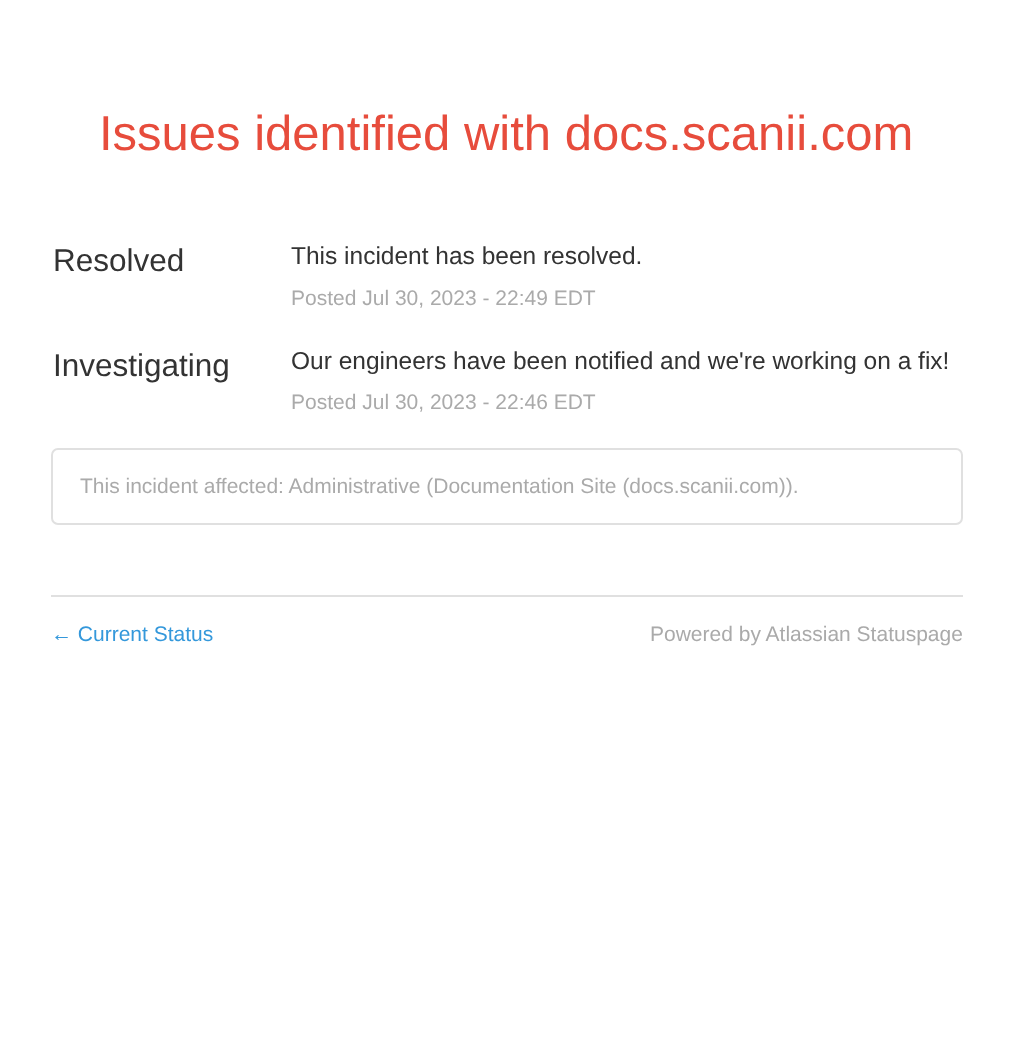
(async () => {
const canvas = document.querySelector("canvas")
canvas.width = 1012
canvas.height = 1044
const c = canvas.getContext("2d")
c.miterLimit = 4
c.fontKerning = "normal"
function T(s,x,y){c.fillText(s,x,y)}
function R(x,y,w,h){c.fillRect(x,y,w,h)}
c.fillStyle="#fff"
R(0,0,1012,1044)
c.font="49px Liberation Sans"
c.fillStyle="#e74c3c"
T("Issues identified with docs.scanii.com",99,150)
c.font="31.5px Liberation Sans"
c.fillStyle="#333"
T("Resolved",53,271)
c.font="24.5px Liberation Sans"
T("This incident has been resolved.",291,264)
c.font="21px Liberation Sans"
c.fillStyle="#aaa"
T("Posted Jul 30, 2023 - 22:49 EDT",291,305)
c.font="31.5px Liberation Sans"
c.fillStyle="#333"
T("Investigating",53,376)
c.font="24.5px Liberation Sans"
T("Our engineers have been notified and we're working on a fix!",291,369)
c.font="21px Liberation Sans"
c.fillStyle="#aaa"
T("Posted Jul 30, 2023 - 22:46 EDT",291,409)
c.beginPath()
c.roundRect(52,449,910,75,6)
c.strokeStyle="#e0e0e0"
c.lineWidth=2
c.stroke()
T("This incident affected: Administrative (Documentation Site (docs.scanii.com)).",80,493)
c.fillStyle="#e0e0e0"
R(51,595,912,2)
c.fillStyle="#3498db"
T("← Current Status",51,641)
c.fillStyle="#aaa"
T("Powered by Atlassian Statuspage",650,641)
})()
